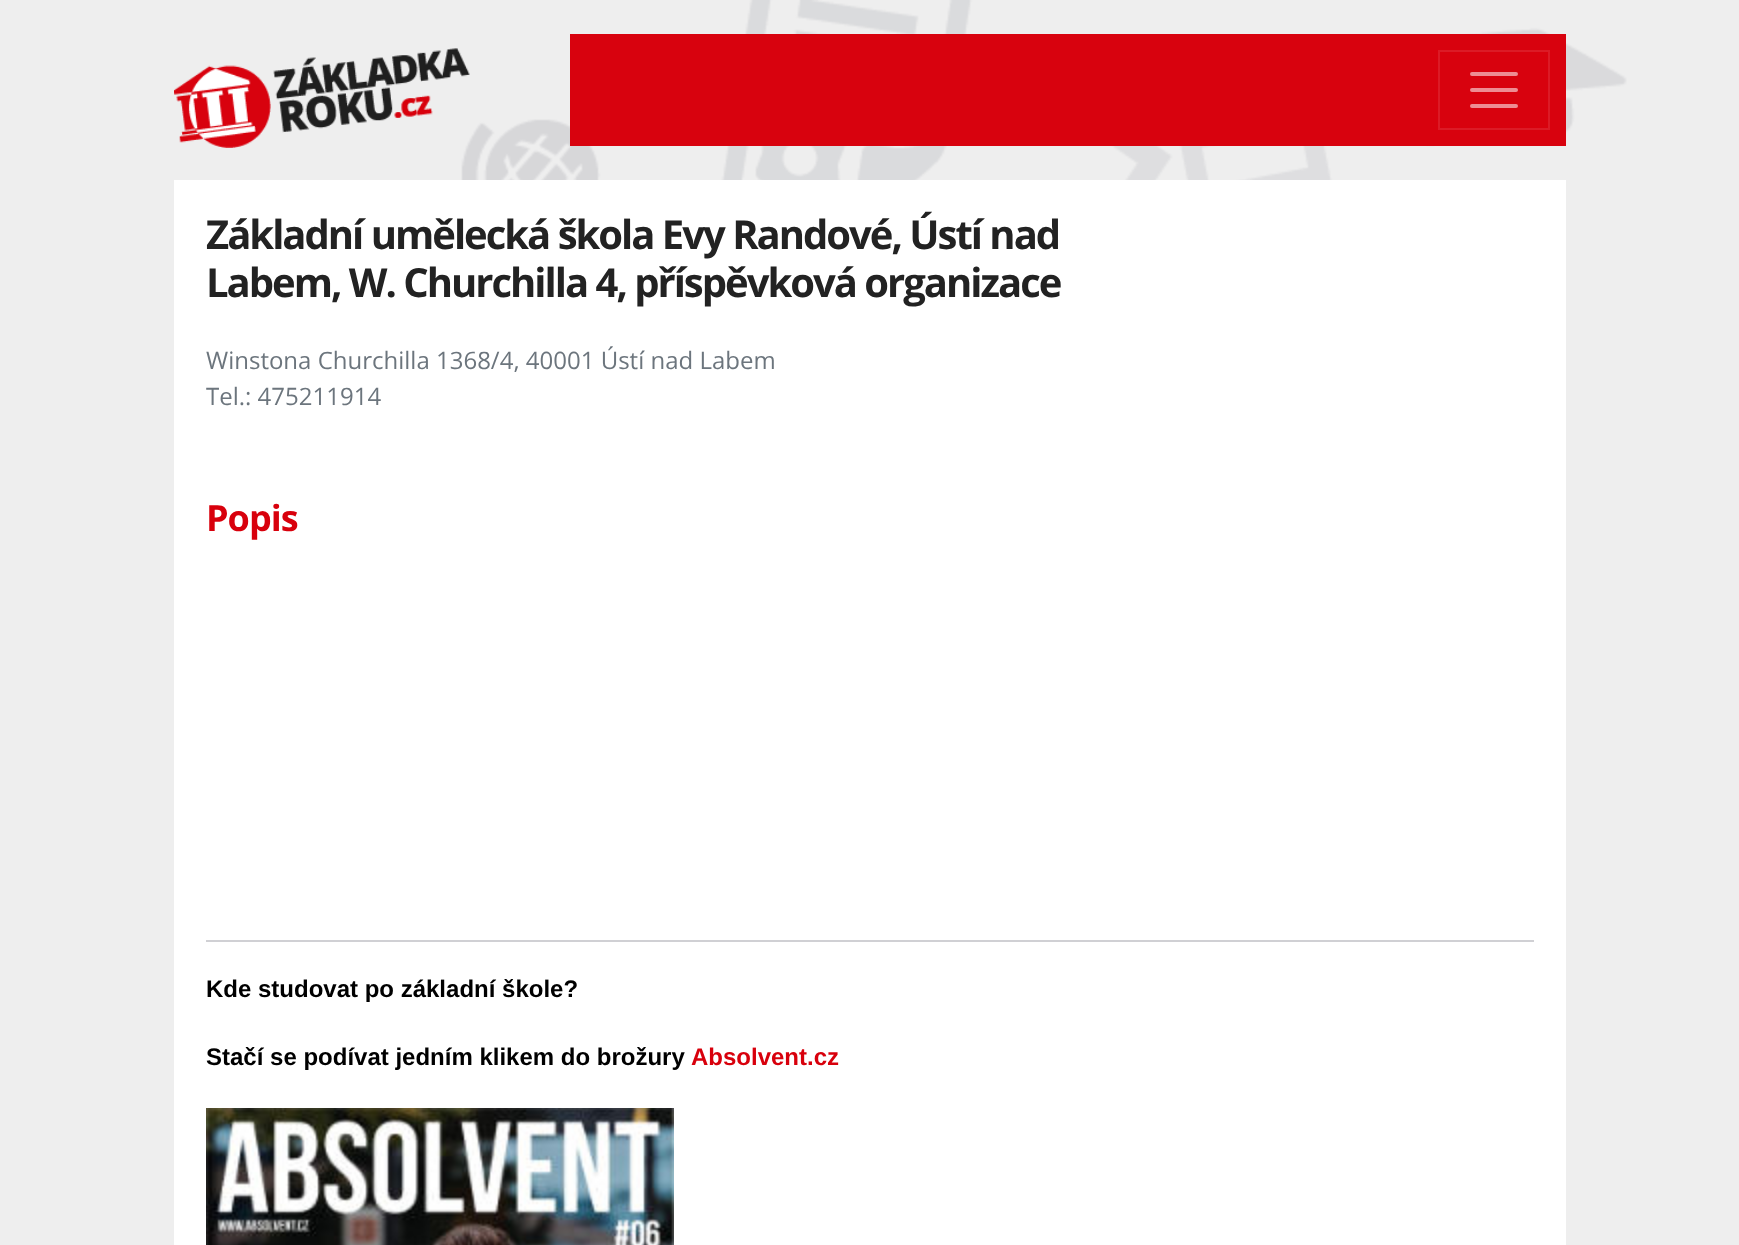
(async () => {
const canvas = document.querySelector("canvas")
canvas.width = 1739
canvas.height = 1245
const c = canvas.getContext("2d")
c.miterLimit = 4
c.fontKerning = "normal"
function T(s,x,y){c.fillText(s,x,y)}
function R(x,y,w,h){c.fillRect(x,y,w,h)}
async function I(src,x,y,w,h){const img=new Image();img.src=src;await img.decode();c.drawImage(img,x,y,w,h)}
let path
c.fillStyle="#eee"
R(0,0,1739,1245)
await I("1.png",461,0,1166,180)
await I("2.png",174,48,296,100)
c.fillStyle="#d8020e"
R(570,34,996,112)
c.strokeStyle="#dc1b26"
c.lineWidth=2
c.strokeRect(1439,51,110,78)
path = new Path2D("M1472 74h44m-44 16h44m-44 16h44")
c.strokeStyle="#ed8d93"
c.lineWidth=4
c.lineCap="round"
c.stroke(path)
c.fillStyle="#fff"
R(174,180,1392,1065)
c.letterSpacing="-2px"
c.font="bold 40px Open Sans"
c.fillStyle="#222"
T("Základní umělecká škola Evy Randové, Ústí nad",206,249)
T("Labem, W. Churchilla 4, příspěvková organizace",206,297)
c.letterSpacing="0px"
c.font="24px Open Sans"
c.fillStyle="#6c757d"
T("Winstona Churchilla 1368/4, 40001 Ústí nad Labem",206,369)
T("Tel.: 475211914",206,405)
c.letterSpacing="-1px"
c.font="bold 36px Open Sans"
c.fillStyle="#d8000c"
T("Popis",206,531)
c.fillStyle="#d0d0d4"
R(206,940,1328,2)
c.letterSpacing="0px"
c.font="bold 24px Liberation Sans"
c.fillStyle="#000"
T("Kde studovat po základní škole?",206,997)
T("Stačí se podívat jedním klikem do brožury",206,1065)
c.fillStyle="#d8000c"
T("Absolvent.cz",691,1065)
await I("3.png",206,1108,468,137)
})()
